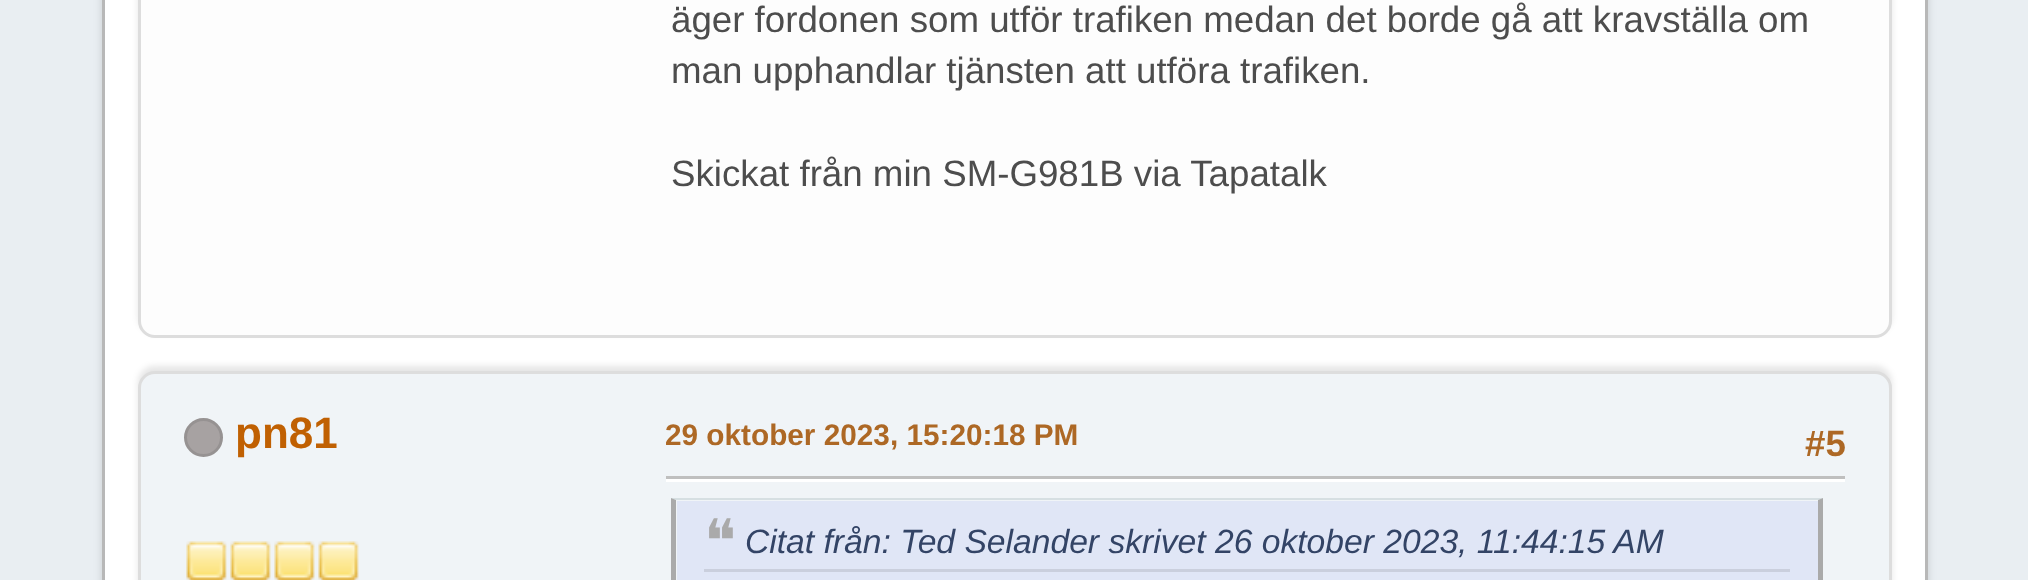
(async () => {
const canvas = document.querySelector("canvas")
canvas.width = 2028
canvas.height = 580
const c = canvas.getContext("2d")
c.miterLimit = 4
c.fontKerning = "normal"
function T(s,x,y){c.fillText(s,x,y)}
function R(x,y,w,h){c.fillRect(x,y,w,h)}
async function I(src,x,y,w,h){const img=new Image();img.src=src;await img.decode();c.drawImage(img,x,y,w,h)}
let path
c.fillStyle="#e9eef2"
R(0,0,2028,580)
c.fillStyle="#00000024"
c.filter="blur(4px)"
c.beginPath()
c.roundRect(102,-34,1826,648,22)
c.fill()
c.filter="none"
c.fillStyle="#fff"
c.beginPath()
c.rect(103.5,-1.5,1823,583)
c.fill()
c.strokeStyle="#b8b8b8"
c.lineWidth=3
c.stroke()
c.fillStyle="#0000001a"
c.filter="blur(3px)"
c.beginPath()
c.roundRect(138,-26,1754,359,17)
c.fill()
c.filter="none"
c.fillStyle="#fdfdfd"
c.beginPath()
c.roundRect(139.5,-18.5,1751,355,15.5)
c.fill()
c.strokeStyle="#ddd"
c.stroke()
c.font="36.7px Liberation Sans"
c.fillStyle="#4d4d4d"
T("äger fordonen som utför trafiken medan det borde gå att kravställa om",671,32)
T("man upphandlar tjänsten att utföra trafiken.",671,83)
T("Skickat från min SM-G981B via Tapatalk",671,186)
c.fillStyle="#0000001a"
c.filter="blur(3px)"
c.beginPath()
c.roundRect(138,366,1754,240,17)
c.fill()
c.filter="none"
c.fillStyle="#f0f4f7"
c.beginPath()
c.roundRect(139.5,372.5,1751,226,15.5)
c.fill()
c.stroke()
c.fillStyle="#a7a2a2"
c.beginPath()
c.arc(203.5,437.5,18,0,7)
c.fill()
c.strokeStyle="#969292"
c.stroke()
c.font="bold 44px Liberation Sans"
c.fillStyle="#c06002"
T("pn81",235,448)
await I("1.png",186,541,41,39)
await I("2.png",230,541,41,39)
await I("2.png",274,541,41,39)
await I("2.png",318,541,41,39)
c.font="bold 29.75px Liberation Sans"
c.fillStyle="#ad6825"
T("29 oktober 2023, 15:20:18 PM",665,445)
c.font="bold 36.7px Liberation Sans"
T("#5",1805,456)
c.fillStyle="#fff"
R(666,479,1179,3)
c.fillStyle="#bfbfbf"
R(666,476,1179,3)
c.fillStyle="#e0e6f6"
R(677,501,1141,79)
c.fillStyle="#d6dfe2"
path = new Path2D("M671 498h1152l-5 2h-1142z")
c.fill(path)
c.fillStyle="#aaa"
path = new Path2D("M1823 498v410l-5-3v-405z")
c.fill(path)
path = new Path2D("M671 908v-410l5 2v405z")
c.fill(path)
c.fillStyle="#cacfdd"
R(704,569,1086,3)
c.font="60px DejaVu Sans"
c.fillStyle="#aaa"
T("❝",704,562)
c.font="italic 33.65px Liberation Sans"
c.fillStyle="#346"
T("Citat från: Ted Selander skrivet 26 oktober 2023, 11:44:15 AM",745,553)
})()
